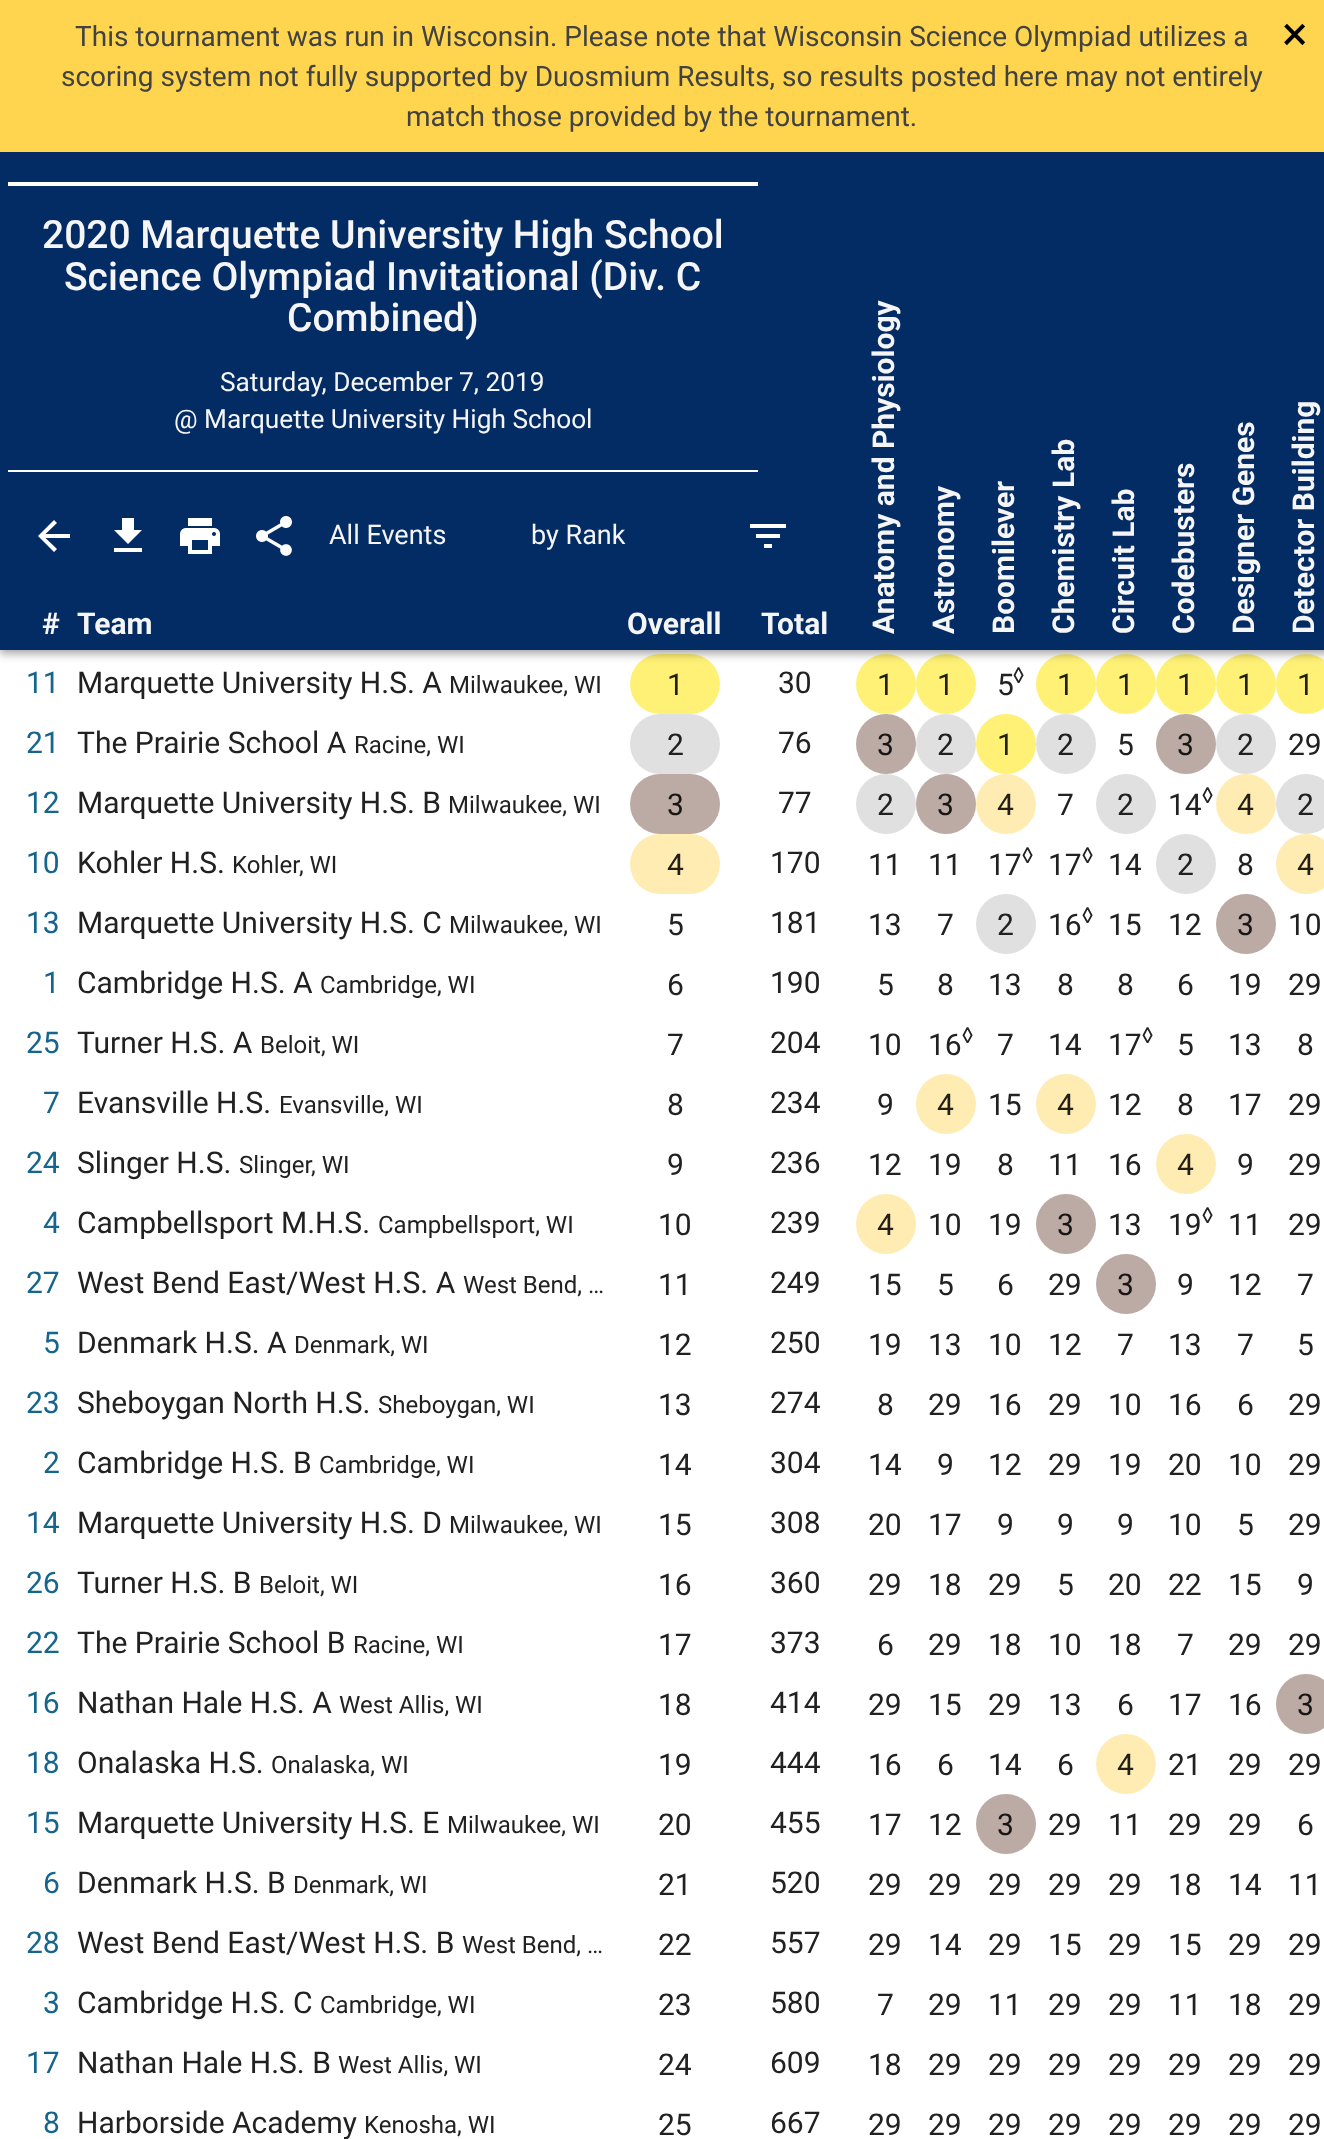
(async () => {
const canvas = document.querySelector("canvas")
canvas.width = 1324
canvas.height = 2139
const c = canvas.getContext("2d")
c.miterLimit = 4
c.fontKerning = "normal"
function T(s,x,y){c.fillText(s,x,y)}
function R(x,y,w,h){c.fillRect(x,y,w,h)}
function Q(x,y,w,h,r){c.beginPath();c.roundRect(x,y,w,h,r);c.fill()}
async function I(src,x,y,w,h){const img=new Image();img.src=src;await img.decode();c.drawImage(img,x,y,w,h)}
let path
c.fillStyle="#fff"
R(0,0,1324,2139)
c.fillStyle="#fff176"
Q(630,654,90,60,30)
c.beginPath()
c.arc(886,684,30,0,7)
c.fill()
c.beginPath()
c.arc(946,684,30,0,7)
c.fill()
c.beginPath()
c.arc(1066,684,30,0,7)
c.fill()
c.beginPath()
c.arc(1126,684,30,0,7)
c.fill()
c.beginPath()
c.arc(1186,684,30,0,7)
c.fill()
c.beginPath()
c.arc(1246,684,30,0,7)
c.fill()
c.beginPath()
c.arc(1306,684,30,0,7)
c.fill()
c.fillStyle="#00000033"
c.filter="blur(5px)"
c.beginPath()
c.rect(0,154,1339,498)
c.fill()
c.filter="none"
c.fillStyle="#0000001f"
c.filter="blur(4px)"
c.beginPath()
c.rect(0,158,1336,498)
c.fill()
c.filter="none"
c.fillStyle="#00000024"
c.filter="blur(4px)"
c.beginPath()
c.rect(0,152,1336,498)
c.fill()
c.filter="none"
c.fillStyle="#ffd54f"
R(0,0,1324,152)
c.font="28px Roboto"
c.fillStyle="#424242"
T("This tournament was run in Wisconsin. Please note that Wisconsin Science Olympiad utilizes a",75,46)
c.font="48px Roboto"
c.fillStyle="#000"
T("×",1282,50)
c.font="28px Roboto"
c.fillStyle="#424242"
T("scoring system not fully supported by Duosmium Results, so results posted here may not entirely",61,86)
T("match those provided by the tournament.",406,126)
c.fillStyle="#042c64"
R(0,152,1324,498)
c.fillStyle="#fff"
R(8,182,750,4)
R(8,470,750,2)
c.font="500 39px Roboto"
c.fillStyle="#f5f5f5"
T("2020 Marquette University High School",42,248)
T("Science Olympiad Invitational (Div. C",64,290)
T("Combined)",287,331)
c.font="26.25px Roboto"
T("Saturday, December 7, 2019",220,391)
T("@ Marquette University High School",174,428)
c.fillStyle="#fff"
path = new Path2D("M70 534h-24.5l11.5-11l-3-3l-16 16l16 16l3-3l-11.5-11h24.5z")
c.fill(path)
path = new Path2D("M142 530h-8v-12h-12v12h-8l14 14zm-28 18v4h28v-4z")
c.fill(path)
await I("1.png",180,518,40,36)
await I("2.png",256,516,36,40)
c.font="27px Roboto"
c.fillStyle="#f5f5f5"
T("All Events",329,544)
T("by Rank",531,544)
c.fillStyle="#fff"
path = new Path2D("M764 548h8v-4h-8zm-14-24v4h36v-4zm6 14h24v-4h-24z")
c.fill(path)
c.font="bold 30px Roboto"
c.fillStyle="#f5f5f5"
T("#",42,634)
T("Team",77,634)
T("Overall",627,634)
T("Total",761,634)
c.save()
c.translate(894,634)
c.rotate(-90 * Math.PI / 180)
c.fillText("Anatomy and Physiology",0,0)
c.restore()
c.save()
c.translate(954,634)
c.rotate(-90 * Math.PI / 180)
c.fillText("Astronomy",0,0)
c.restore()
c.save()
c.translate(1014,634)
c.rotate(-90 * Math.PI / 180)
c.fillText("Boomilever",0,0)
c.restore()
c.save()
c.translate(1074,634)
c.rotate(-90 * Math.PI / 180)
c.fillText("Chemistry Lab",0,0)
c.restore()
c.save()
c.translate(1134,634)
c.rotate(-90 * Math.PI / 180)
c.fillText("Circuit Lab",0,0)
c.restore()
c.save()
c.translate(1194,634)
c.rotate(-90 * Math.PI / 180)
c.fillText("Codebusters",0,0)
c.restore()
c.save()
c.translate(1254,634)
c.rotate(-90 * Math.PI / 180)
c.fillText("Designer Genes",0,0)
c.restore()
c.save()
c.translate(1314,634)
c.rotate(-90 * Math.PI / 180)
c.fillText("Detector Building",0,0)
c.restore()
c.font="30px Roboto"
c.fillStyle="#15658c"
T("11",26,693)
c.fillStyle="#212121"
T("Marquette University H.S. A",77,693)
c.font="24px Roboto"
T("Milwaukee, WI",449,693)
c.font="30px Roboto"
c.fillStyle="#211f0f"
T("1",667,695)
c.fillStyle="#212121"
T("30",778,693)
c.fillStyle="#211f0f"
T("1",877,695)
T("1",937,695)
c.fillStyle="#212121"
T("5",997,695)
c.font="22px Roboto"
T("◊",1013,683)
c.font="30px Roboto"
c.fillStyle="#211f0f"
T("1",1057,695)
T("1",1117,695)
T("1",1177,695)
T("1",1237,695)
T("1",1297,695)
c.fillStyle="#15658c"
T("21",26,753)
c.fillStyle="#212121"
T("The Prairie School A",77,753)
c.font="24px Roboto"
T("Racine, WI",354,753)
c.fillStyle="#e0e0e0"
Q(630,714,90,60,30)
c.font="30px Roboto"
c.fillStyle="#212121"
T("2",667,755)
T("76",778,753)
c.fillStyle="#bcaaa4"
c.beginPath()
c.arc(886,744,30,0,7)
c.fill()
c.fillStyle="#181615"
T("3",877,755)
c.fillStyle="#e0e0e0"
c.beginPath()
c.arc(946,744,30,0,7)
c.fill()
c.fillStyle="#212121"
T("2",937,755)
c.fillStyle="#fff176"
c.beginPath()
c.arc(1006,744,30,0,7)
c.fill()
c.fillStyle="#211f0f"
T("1",997,755)
c.fillStyle="#e0e0e0"
c.beginPath()
c.arc(1066,744,30,0,7)
c.fill()
c.fillStyle="#212121"
T("2",1057,755)
T("5",1117,755)
c.fillStyle="#bcaaa4"
c.beginPath()
c.arc(1186,744,30,0,7)
c.fill()
c.fillStyle="#181615"
T("3",1177,755)
c.fillStyle="#e0e0e0"
c.beginPath()
c.arc(1246,744,30,0,7)
c.fill()
c.fillStyle="#212121"
T("2",1237,755)
T("29",1288,755)
c.fillStyle="#15658c"
T("12",26,813)
c.fillStyle="#212121"
T("Marquette University H.S. B",77,813)
c.font="24px Roboto"
T("Milwaukee, WI",448,813)
c.fillStyle="#bcaaa4"
Q(630,774,90,60,30)
c.font="30px Roboto"
c.fillStyle="#181615"
T("3",667,815)
c.fillStyle="#212121"
T("77",778,813)
c.fillStyle="#e0e0e0"
c.beginPath()
c.arc(886,804,30,0,7)
c.fill()
c.fillStyle="#212121"
T("2",877,815)
c.fillStyle="#bcaaa4"
c.beginPath()
c.arc(946,804,30,0,7)
c.fill()
c.fillStyle="#181615"
T("3",937,815)
c.fillStyle="#ffecb3"
c.beginPath()
c.arc(1006,804,30,0,7)
c.fill()
c.fillStyle="#211f17"
T("4",997,815)
c.fillStyle="#212121"
T("7",1057,815)
c.fillStyle="#e0e0e0"
c.beginPath()
c.arc(1126,804,30,0,7)
c.fill()
c.fillStyle="#212121"
T("2",1117,815)
T("14",1168,815)
c.font="22px Roboto"
T("◊",1202,803)
c.fillStyle="#ffecb3"
c.beginPath()
c.arc(1246,804,30,0,7)
c.fill()
c.font="30px Roboto"
c.fillStyle="#211f17"
T("4",1237,815)
c.fillStyle="#e0e0e0"
c.beginPath()
c.arc(1306,804,30,0,7)
c.fill()
c.fillStyle="#212121"
T("2",1297,815)
c.fillStyle="#15658c"
T("10",26,873)
c.fillStyle="#212121"
T("Kohler H.S.",77,873)
c.font="24px Roboto"
T("Kohler, WI",232,873)
c.fillStyle="#ffecb3"
Q(630,834,90,60,30)
c.font="30px Roboto"
c.fillStyle="#211f17"
T("4",667,875)
c.fillStyle="#212121"
T("170",770,873)
T("11",868,875)
T("11",928,875)
T("17",988,875)
c.font="22px Roboto"
T("◊",1022,863)
c.font="30px Roboto"
T("17",1048,875)
c.font="22px Roboto"
T("◊",1082,863)
c.font="30px Roboto"
T("14",1108,875)
c.fillStyle="#e0e0e0"
c.beginPath()
c.arc(1186,864,30,0,7)
c.fill()
c.fillStyle="#212121"
T("2",1177,875)
T("8",1237,875)
c.fillStyle="#ffecb3"
c.beginPath()
c.arc(1306,864,30,0,7)
c.fill()
c.fillStyle="#211f17"
T("4",1297,875)
c.fillStyle="#15658c"
T("13",26,933)
c.fillStyle="#212121"
T("Marquette University H.S. C",77,933)
c.font="24px Roboto"
T("Milwaukee, WI",449,933)
c.font="30px Roboto"
T("5",667,935)
T("181",770,933)
T("13",868,935)
T("7",937,935)
c.fillStyle="#e0e0e0"
c.beginPath()
c.arc(1006,924,30,0,7)
c.fill()
c.fillStyle="#212121"
T("2",997,935)
T("16",1048,935)
c.font="22px Roboto"
T("◊",1082,923)
c.font="30px Roboto"
T("15",1108,935)
T("12",1168,935)
c.fillStyle="#bcaaa4"
c.beginPath()
c.arc(1246,924,30,0,7)
c.fill()
c.fillStyle="#181615"
T("3",1237,935)
c.fillStyle="#212121"
T("10",1288,935)
c.fillStyle="#15658c"
T("1",43,993)
c.fillStyle="#212121"
T("Cambridge H.S. A",77,993)
c.font="24px Roboto"
T("Cambridge, WI",320,993)
c.font="30px Roboto"
T("6",667,995)
T("190",770,993)
T("5",877,995)
T("8",937,995)
T("13",988,995)
T("8",1057,995)
T("8",1117,995)
T("6",1177,995)
T("19",1228,995)
T("29",1288,995)
c.fillStyle="#15658c"
T("25",26,1053)
c.fillStyle="#212121"
T("Turner H.S. A",77,1053)
c.font="24px Roboto"
T("Beloit, WI",260,1053)
c.font="30px Roboto"
T("7",667,1055)
T("204",770,1053)
T("10",868,1055)
T("16",928,1055)
c.font="22px Roboto"
T("◊",962,1043)
c.font="30px Roboto"
T("7",997,1055)
T("14",1048,1055)
T("17",1108,1055)
c.font="22px Roboto"
T("◊",1142,1043)
c.font="30px Roboto"
T("5",1177,1055)
T("13",1228,1055)
T("8",1297,1055)
c.fillStyle="#15658c"
T("7",43,1113)
c.fillStyle="#212121"
T("Evansville H.S.",77,1113)
c.font="24px Roboto"
T("Evansville, WI",279,1113)
c.font="30px Roboto"
T("8",667,1115)
T("234",770,1113)
T("9",877,1115)
c.fillStyle="#ffecb3"
c.beginPath()
c.arc(946,1104,30,0,7)
c.fill()
c.fillStyle="#211f17"
T("4",937,1115)
c.fillStyle="#212121"
T("15",988,1115)
c.fillStyle="#ffecb3"
c.beginPath()
c.arc(1066,1104,30,0,7)
c.fill()
c.fillStyle="#211f17"
T("4",1057,1115)
c.fillStyle="#212121"
T("12",1108,1115)
T("8",1177,1115)
T("17",1228,1115)
T("29",1288,1115)
c.fillStyle="#15658c"
T("24",26,1173)
c.fillStyle="#212121"
T("Slinger H.S.",77,1173)
c.font="24px Roboto"
T("Slinger, WI",239,1173)
c.font="30px Roboto"
T("9",667,1175)
T("236",770,1173)
T("12",868,1175)
T("19",928,1175)
T("8",997,1175)
T("11",1048,1175)
T("16",1108,1175)
c.fillStyle="#ffecb3"
c.beginPath()
c.arc(1186,1164,30,0,7)
c.fill()
c.fillStyle="#211f17"
T("4",1177,1175)
c.fillStyle="#212121"
T("9",1237,1175)
T("29",1288,1175)
c.fillStyle="#15658c"
T("4",43,1233)
c.fillStyle="#212121"
T("Campbellsport M.H.S.",77,1233)
c.font="24px Roboto"
T("Campbellsport, WI",378,1233)
c.font="30px Roboto"
T("10",658,1235)
T("239",770,1233)
c.fillStyle="#ffecb3"
c.beginPath()
c.arc(886,1224,30,0,7)
c.fill()
c.fillStyle="#211f17"
T("4",877,1235)
c.fillStyle="#212121"
T("10",928,1235)
T("19",988,1235)
c.fillStyle="#bcaaa4"
c.beginPath()
c.arc(1066,1224,30,0,7)
c.fill()
c.fillStyle="#181615"
T("3",1057,1235)
c.fillStyle="#212121"
T("13",1108,1235)
T("19",1168,1235)
c.font="22px Roboto"
T("◊",1202,1223)
c.font="30px Roboto"
T("11",1228,1235)
T("29",1288,1235)
c.fillStyle="#15658c"
T("27",26,1293)
c.fillStyle="#212121"
T("West Bend East/West H.S. A",77,1293)
c.font="24px Roboto"
T("West Bend, …",463,1293)
c.font="30px Roboto"
T("11",658,1295)
T("249",770,1293)
T("15",868,1295)
T("5",937,1295)
T("6",997,1295)
T("29",1048,1295)
c.fillStyle="#bcaaa4"
c.beginPath()
c.arc(1126,1284,30,0,7)
c.fill()
c.fillStyle="#181615"
T("3",1117,1295)
c.fillStyle="#212121"
T("9",1177,1295)
T("12",1228,1295)
T("7",1297,1295)
c.fillStyle="#15658c"
T("5",43,1353)
c.fillStyle="#212121"
T("Denmark H.S. A",77,1353)
c.font="24px Roboto"
T("Denmark, WI",294,1353)
c.font="30px Roboto"
T("12",658,1355)
T("250",770,1353)
T("19",868,1355)
T("13",928,1355)
T("10",988,1355)
T("12",1048,1355)
T("7",1117,1355)
T("13",1168,1355)
T("7",1237,1355)
T("5",1297,1355)
c.fillStyle="#15658c"
T("23",26,1413)
c.fillStyle="#212121"
T("Sheboygan North H.S.",77,1413)
c.font="24px Roboto"
T("Sheboygan, WI",378,1413)
c.font="30px Roboto"
T("13",658,1415)
T("274",770,1413)
T("8",877,1415)
T("29",928,1415)
T("16",988,1415)
T("29",1048,1415)
T("10",1108,1415)
T("16",1168,1415)
T("6",1237,1415)
T("29",1288,1415)
c.fillStyle="#15658c"
T("2",43,1473)
c.fillStyle="#212121"
T("Cambridge H.S. B",77,1473)
c.font="24px Roboto"
T("Cambridge, WI",319,1473)
c.font="30px Roboto"
T("14",658,1475)
T("304",770,1473)
T("14",868,1475)
T("9",937,1475)
T("12",988,1475)
T("29",1048,1475)
T("19",1108,1475)
T("20",1168,1475)
T("10",1228,1475)
T("29",1288,1475)
c.fillStyle="#15658c"
T("14",26,1533)
c.fillStyle="#212121"
T("Marquette University H.S. D",77,1533)
c.font="24px Roboto"
T("Milwaukee, WI",449,1533)
c.font="30px Roboto"
T("15",658,1535)
T("308",770,1533)
T("20",868,1535)
T("17",928,1535)
T("9",997,1535)
T("9",1057,1535)
T("9",1117,1535)
T("10",1168,1535)
T("5",1237,1535)
T("29",1288,1535)
c.fillStyle="#15658c"
T("26",26,1593)
c.fillStyle="#212121"
T("Turner H.S. B",77,1593)
c.font="24px Roboto"
T("Beloit, WI",259,1593)
c.font="30px Roboto"
T("16",658,1595)
T("360",770,1593)
T("29",868,1595)
T("18",928,1595)
T("29",988,1595)
T("5",1057,1595)
T("20",1108,1595)
T("22",1168,1595)
T("15",1228,1595)
T("9",1297,1595)
c.fillStyle="#15658c"
T("22",26,1653)
c.fillStyle="#212121"
T("The Prairie School B",77,1653)
c.font="24px Roboto"
T("Racine, WI",353,1653)
c.font="30px Roboto"
T("17",658,1655)
T("373",770,1653)
T("6",877,1655)
T("29",928,1655)
T("18",988,1655)
T("10",1048,1655)
T("18",1108,1655)
T("7",1177,1655)
T("29",1228,1655)
T("29",1288,1655)
c.fillStyle="#15658c"
T("16",26,1713)
c.fillStyle="#212121"
T("Nathan Hale H.S. A",77,1713)
c.font="24px Roboto"
T("West Allis, WI",339,1713)
c.font="30px Roboto"
T("18",658,1715)
T("414",770,1713)
T("29",868,1715)
T("15",928,1715)
T("29",988,1715)
T("13",1048,1715)
T("6",1117,1715)
T("17",1168,1715)
T("16",1228,1715)
c.fillStyle="#bcaaa4"
c.beginPath()
c.arc(1306,1704,30,0,7)
c.fill()
c.fillStyle="#181615"
T("3",1297,1715)
c.fillStyle="#15658c"
T("18",26,1773)
c.fillStyle="#212121"
T("Onalaska H.S.",77,1773)
c.font="24px Roboto"
T("Onalaska, WI",271,1773)
c.font="30px Roboto"
T("19",658,1775)
T("444",770,1773)
T("16",868,1775)
T("6",937,1775)
T("14",988,1775)
T("6",1057,1775)
c.fillStyle="#ffecb3"
c.beginPath()
c.arc(1126,1764,30,0,7)
c.fill()
c.fillStyle="#211f17"
T("4",1117,1775)
c.fillStyle="#212121"
T("21",1168,1775)
T("29",1228,1775)
T("29",1288,1775)
c.fillStyle="#15658c"
T("15",26,1833)
c.fillStyle="#212121"
T("Marquette University H.S. E",77,1833)
c.font="24px Roboto"
T("Milwaukee, WI",447,1833)
c.font="30px Roboto"
T("20",658,1835)
T("455",770,1833)
T("17",868,1835)
T("12",928,1835)
c.fillStyle="#bcaaa4"
c.beginPath()
c.arc(1006,1824,30,0,7)
c.fill()
c.fillStyle="#181615"
T("3",997,1835)
c.fillStyle="#212121"
T("29",1048,1835)
T("11",1108,1835)
T("29",1168,1835)
T("29",1228,1835)
T("6",1297,1835)
c.fillStyle="#15658c"
T("6",43,1893)
c.fillStyle="#212121"
T("Denmark H.S. B",77,1893)
c.font="24px Roboto"
T("Denmark, WI",293,1893)
c.font="30px Roboto"
T("21",658,1895)
T("520",770,1893)
T("29",868,1895)
T("29",928,1895)
T("29",988,1895)
T("29",1048,1895)
T("29",1108,1895)
T("18",1168,1895)
T("14",1228,1895)
T("11",1288,1895)
c.fillStyle="#15658c"
T("28",26,1953)
c.fillStyle="#212121"
T("West Bend East/West H.S. B",77,1953)
c.font="24px Roboto"
T("West Bend, …",462,1953)
c.font="30px Roboto"
T("22",658,1955)
T("557",770,1953)
T("29",868,1955)
T("14",928,1955)
T("29",988,1955)
T("15",1048,1955)
T("29",1108,1955)
T("15",1168,1955)
T("29",1228,1955)
T("29",1288,1955)
c.fillStyle="#15658c"
T("3",43,2013)
c.fillStyle="#212121"
T("Cambridge H.S. C",77,2013)
c.font="24px Roboto"
T("Cambridge, WI",320,2013)
c.font="30px Roboto"
T("23",658,2015)
T("580",770,2013)
T("7",877,2015)
T("29",928,2015)
T("11",988,2015)
T("29",1048,2015)
T("29",1108,2015)
T("11",1168,2015)
T("18",1228,2015)
T("29",1288,2015)
c.fillStyle="#15658c"
T("17",26,2073)
c.fillStyle="#212121"
T("Nathan Hale H.S. B",77,2073)
c.font="24px Roboto"
T("West Allis, WI",338,2073)
c.font="30px Roboto"
T("24",658,2075)
T("609",770,2073)
T("18",868,2075)
T("29",928,2075)
T("29",988,2075)
T("29",1048,2075)
T("29",1108,2075)
T("29",1168,2075)
T("29",1228,2075)
T("29",1288,2075)
c.fillStyle="#15658c"
T("8",43,2133)
c.fillStyle="#212121"
T("Harborside Academy",77,2133)
c.font="24px Roboto"
T("Kenosha, WI",364,2133)
c.font="30px Roboto"
T("25",658,2135)
T("667",770,2133)
T("29",868,2135)
T("29",928,2135)
T("29",988,2135)
T("29",1048,2135)
T("29",1108,2135)
T("29",1168,2135)
T("29",1228,2135)
T("29",1288,2135)
})()
